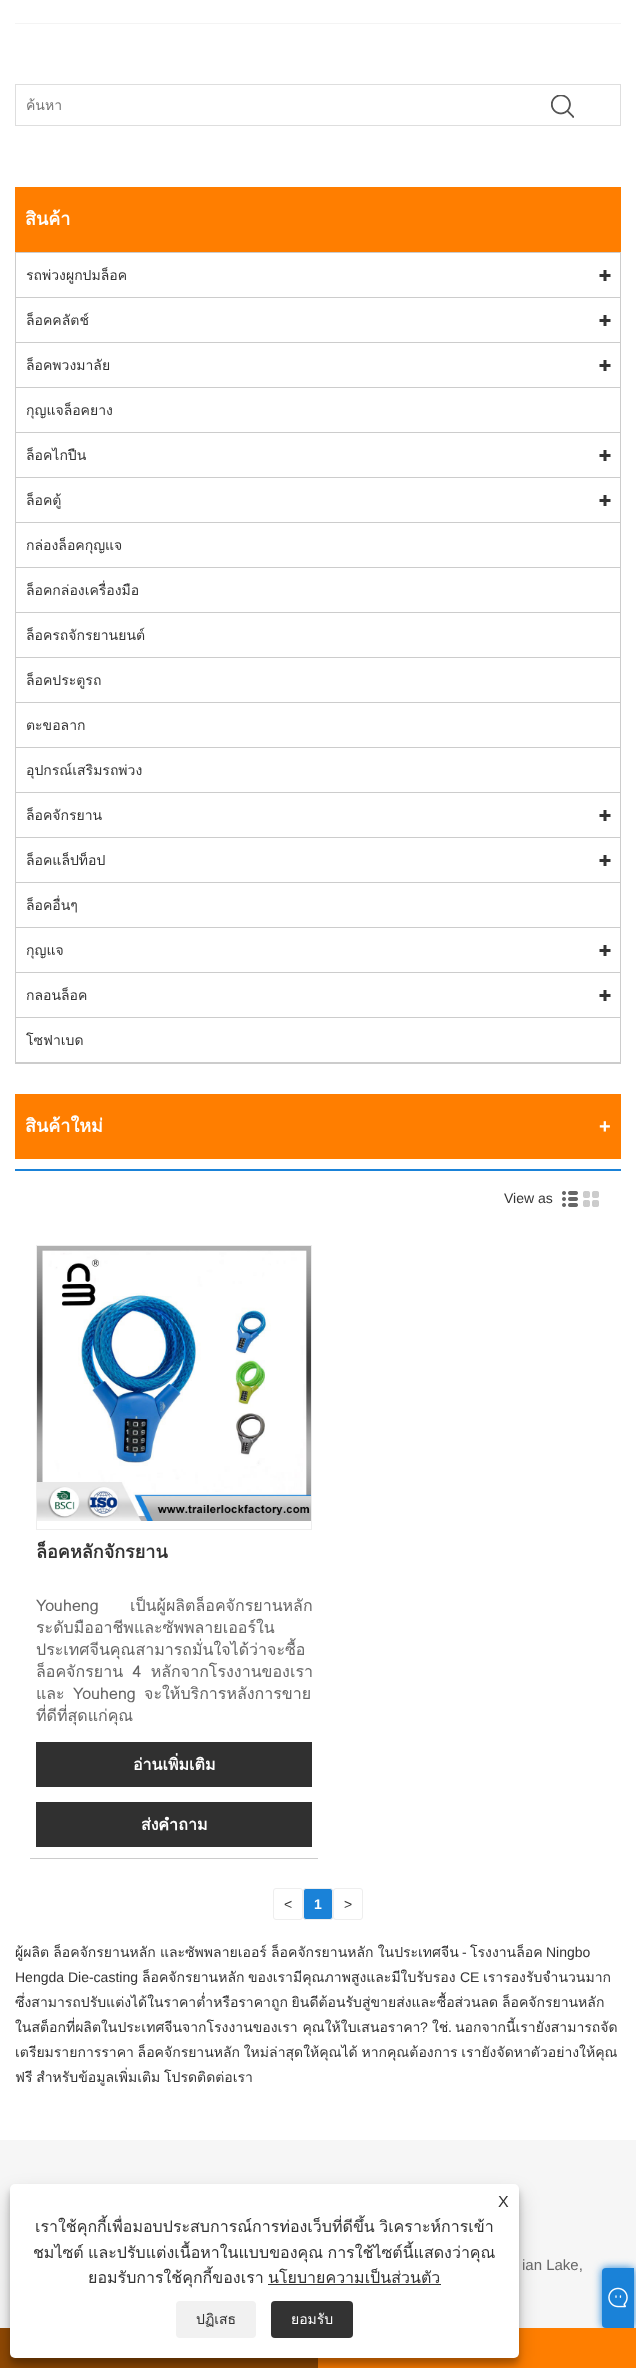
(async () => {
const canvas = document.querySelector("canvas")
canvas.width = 636
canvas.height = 2368
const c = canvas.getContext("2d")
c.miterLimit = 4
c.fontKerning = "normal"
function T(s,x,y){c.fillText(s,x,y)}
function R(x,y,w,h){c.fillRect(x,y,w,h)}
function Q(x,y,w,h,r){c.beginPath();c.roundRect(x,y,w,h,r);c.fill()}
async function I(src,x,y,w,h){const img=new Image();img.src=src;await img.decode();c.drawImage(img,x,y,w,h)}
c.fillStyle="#fff"
R(0,0,636,2368)
c.fillStyle="#f4f4f4"
R(15,23,606,1)
c.strokeStyle="#dedede"
c.strokeRect(15.5,84.5,605,41)
c.save()
c.beginPath()
c.rect(26,94,473,22)
c.clip()
c.font="14px Loma"
c.fillStyle="#757575"
T("ค้นหา",26,110)
c.restore()
await I("1.png",551,95,23,23)
c.fillStyle="#ff7e00"
R(15,187,606,65)
c.font="bold 18px Loma"
c.fillStyle="#fff"
T("สินค้า",25,225)
c.strokeStyle="#ccc"
c.strokeRect(15.5,252.5,605,811)
c.fillStyle="#ccc"
R(16,297,604,1)
c.font="14px Loma"
c.fillStyle="#333"
T("รถพ่วงผูกปมล็อค",26,280)
await I("2.png",599,270,12,11)
c.fillStyle="#ccc"
R(16,342,604,1)
c.fillStyle="#333"
T("ล็อคคลัตช์",26,325)
await I("2.png",599,315,12,11)
c.fillStyle="#ccc"
R(16,387,604,1)
c.fillStyle="#333"
T("ล็อคพวงมาลัย",26,370)
await I("2.png",599,360,12,11)
c.fillStyle="#ccc"
R(16,432,604,1)
c.fillStyle="#333"
T("กุญแจล็อคยาง",26,415)
c.fillStyle="#ccc"
R(16,477,604,1)
c.fillStyle="#333"
T("ล็อคไกปืน",26,460)
await I("2.png",599,450,12,11)
c.fillStyle="#ccc"
R(16,522,604,1)
c.fillStyle="#333"
T("ล็อคตู้",26,505)
await I("2.png",599,495,12,11)
c.fillStyle="#ccc"
R(16,567,604,1)
c.fillStyle="#333"
T("กล่องล็อคกุญแจ",26,550)
c.fillStyle="#ccc"
R(16,612,604,1)
c.fillStyle="#333"
T("ล็อคกล่องเครื่องมือ",26,595)
c.fillStyle="#ccc"
R(16,657,604,1)
c.fillStyle="#333"
T("ล็อครถจักรยานยนต์",26,640)
c.fillStyle="#ccc"
R(16,702,604,1)
c.fillStyle="#333"
T("ล็อคประตูรถ",26,685)
c.fillStyle="#ccc"
R(16,747,604,1)
c.fillStyle="#333"
T("ตะขอลาก",26,730)
c.fillStyle="#ccc"
R(16,792,604,1)
c.fillStyle="#333"
T("อุปกรณ์เสริมรถพ่วง",26,775)
c.fillStyle="#ccc"
R(16,837,604,1)
c.fillStyle="#333"
T("ล็อคจักรยาน",26,820)
await I("2.png",599,810,12,11)
c.fillStyle="#ccc"
R(16,882,604,1)
c.fillStyle="#333"
T("ล็อคแล็ปท็อป",26,865)
await I("2.png",599,855,12,11)
c.fillStyle="#ccc"
R(16,927,604,1)
c.fillStyle="#333"
T("ล็อคอื่นๆ",26,910)
c.fillStyle="#ccc"
R(16,972,604,1)
c.fillStyle="#333"
T("กุญแจ",26,955)
await I("2.png",599,945,12,11)
c.fillStyle="#ccc"
R(16,1017,604,1)
c.fillStyle="#333"
T("กลอนล็อค",26,1000)
await I("2.png",599,990,12,11)
c.fillStyle="#ccc"
R(16,1062,604,1)
c.fillStyle="#333"
T("โซฟาเบด",26,1045)
c.fillStyle="#ff7e00"
R(15,1094,606,65)
c.font="bold 18px Loma"
c.fillStyle="#fff"
T("สินค้าใหม่",25,1132)
c.font="bold 20px Liberation Sans"
T("+",599,1133)
c.fillStyle="#1a82d8"
R(15,1169,606,2)
c.font="14px Liberation Sans"
c.fillStyle="#333"
T("View as",504,1203)
await I("3.png",562,1191,16,16)
await I("4.png",583,1191,16,16)
c.fillStyle="#ccc"
R(30,1858,288,1)
c.strokeStyle="#eee"
c.strokeRect(36.5,1245.5,275,284)
await I("5.png",37,1246,274,275)
c.save()
c.beginPath()
c.rect(36,1540,276,25)
c.clip()
c.font="bold 18px Loma"
c.fillStyle="#333"
T("ล็อคหลักจักรยาน",36,1558)
c.restore()
c.wordSpacing="26px"
c.font="16px Loma"
c.fillStyle="#666"
T("Youheng เป็นผู้ผลิตล็อคจักรยานหลัก",36,1611)
c.wordSpacing="0px"
T("ระดับมืออาชีพและซัพพลายเออร์ใน",36,1633)
T("ประเทศจีนคุณสามารถมั่นใจได้ว่าจะซื้อ",36,1655)
c.wordSpacing="4px"
T("ล็อคจักรยาน 4 หลักจากโรงงานของเรา",36,1677)
c.wordSpacing="3px"
T("และ Youheng จะให้บริการหลังการขาย",36,1699)
c.wordSpacing="0px"
T("ที่ดีที่สุดแก่คุณ",36,1721)
c.fillStyle="#303030"
R(36,1742,276,45)
c.font="bold 16px Loma"
c.fillStyle="#fff"
T("อ่านเพิ่มเติม",133,1770)
c.fillStyle="#303030"
R(36,1802,276,45)
c.fillStyle="#fff"
T("ส่งคำถาม",141,1830)
c.beginPath()
c.roundRect(273.5,1888.5,29,31,2.5)
c.stroke()
c.font="14px Liberation Sans"
c.fillStyle="#333"
T("<",284,1909)
c.fillStyle="#1a82d8"
c.beginPath()
c.roundRect(303.5,1888.5,29,31,2.5)
c.fill()
c.stroke()
c.font="bold 14px Liberation Sans"
c.fillStyle="#fff"
T("1",314,1909)
c.beginPath()
c.roundRect(333.5,1888.5,29,31,2.5)
c.stroke()
c.font="14px Liberation Sans"
c.fillStyle="#333"
T(">",344,1909)
c.wordSpacing="-0.5px"
c.font="14px Loma"
T("ผู้ผลิต ล็อคจักรยานหลัก และซัพพลายเออร์ ล็อคจักรยานหลัก ในประเทศจีน",15,1957)
c.wordSpacing="0px"
c.font="14px Liberation Sans"
T("-",462,1957)
c.font="14px Loma"
T("โรงงานล็อค",470,1957)
c.font="14px Liberation Sans"
T("Ningbo",546,1957)
T("Hengda Die-casting",15,1982)
c.font="14px Loma"
T("ล็อคจักรยานหลัก",142,1982)
T("ของเรามีคุณภาพสูงและมีใบรับรอง",248,1982)
c.font="14px Liberation Sans"
T("CE",460,1982)
c.font="14px Loma"
T("เรารองรับจำนวนมาก",483,1982)
c.wordSpacing="-1px"
T("ซึ่งสามารถปรับแต่งได้ในราคาต่ำหรือราคาถูก ยินดีต้อนรับสู่ขายส่งและซื้อส่วนลด ล็อคจักรยานหลัก",15,2007)
c.wordSpacing="0px"
T("ในสต็อกที่ผลิตในประเทศจีนจากโรงงานของเรา คุณให้ใบเสนอราคา",15,2032)
c.font="14px Liberation Sans"
T("?",420,2032)
c.font="14px Loma"
T("ใช่",432,2032)
c.font="14px Liberation Sans"
T(".",448,2032)
c.font="14px Loma"
T("นอกจากนี้เรายังสามารถจัด",455,2032)
c.wordSpacing="-1px"
T("เตรียมรายการราคา ล็อคจักรยานหลัก ใหม่ล่าสุดให้คุณได้ หากคุณต้องการ เรายังจัดหาตัวอย่างให้คุณ",15,2057)
T("ฟรี สำหรับข้อมูลเพิ่มเติม โปรดติดต่อเรา",15,2082)
c.fillStyle="#f6f6f6"
R(0,2140,636,188)
c.fillStyle="#904904"
R(0,2328,318,40)
c.fillStyle="#1a82d8"
c.filter="blur(4px)"
c.beginPath()
c.roundRect(602,2268,32,60,4)
c.fill()
c.filter="none"
c.fillStyle="#ff7e00"
R(318,2328,318,40)
c.fillStyle="#0000003b"
c.filter="blur(3px)"
c.beginPath()
c.roundRect(10,2190,509,174,5)
c.fill()
c.filter="none"
c.fillStyle="#00000030"
c.filter="blur(10px)"
c.beginPath()
c.roundRect(10,2194,509,174,5)
c.fill()
c.filter="none"
c.fillStyle="#fff"
Q(10,2184,509,174,5)
c.wordSpacing="0px"
c.font="16px Liberation Sans"
c.fillStyle="#333"
T("X",498,2207)
c.wordSpacing="-1px"
c.font="16px Loma"
T("เราใช้คุกกี้เพื่อมอบประสบการณ์การท่องเว็บที่ดีขึ้น วิเคราะห์การเข้า",35,2232)
T("ชมไซต์ และปรับแต่งเนื้อหาในแบบของคุณ การใช้ไซต์นี้แสดงว่าคุณ",33,2258)
c.wordSpacing="0px"
T("ยอมรับการใช้คุกกี้ของเรา",88,2283)
T("นโยบายความเป็นส่วนตัว",268,2283)
R(268,2284,173,1)
c.fillStyle="#f1f1f1"
Q(176,2301,80,37,4)
c.font="14px Loma"
c.fillStyle="#333"
T("ปฏิเสธ",196,2324)
Q(271,2301,82,37,4)
c.fillStyle="#fff"
T("ยอมรับ",291,2324)
c.font="15px Liberation Sans"
c.fillStyle="#666"
T("ian Lake,",522,2270)
c.fillStyle="#1a82d8"
c.beginPath()
c.roundRect(602,2268,32,60,[4,0,0,4])
c.fill()
await I("6.png",608,2287,20,21)
})()
